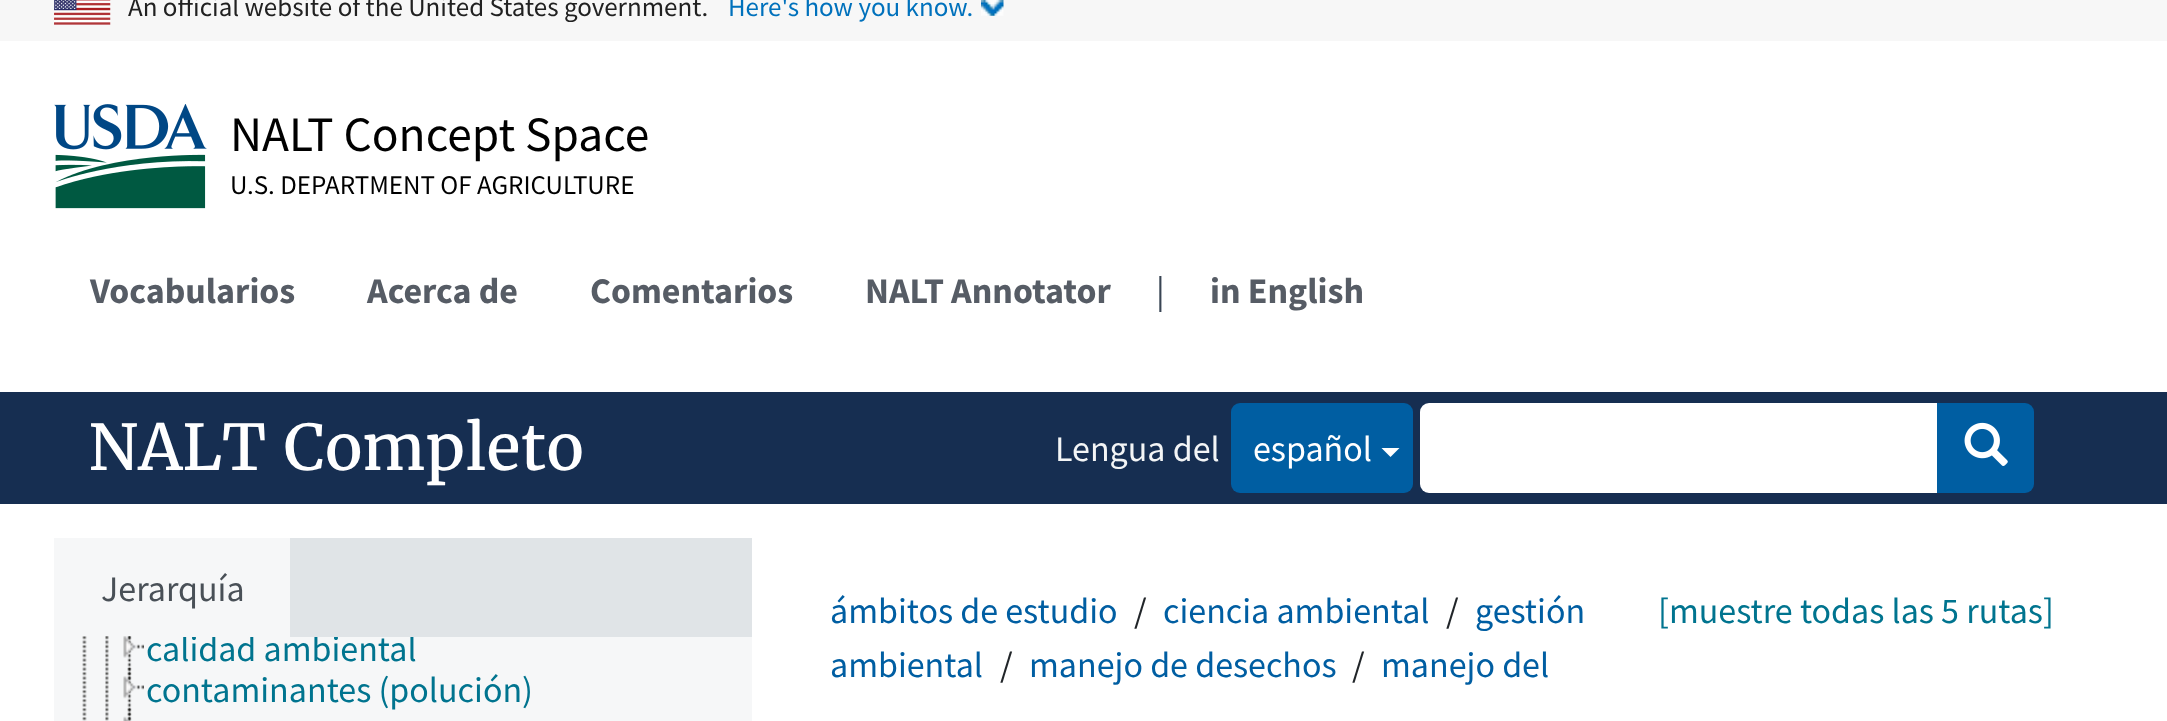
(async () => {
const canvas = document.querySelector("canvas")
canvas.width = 2167
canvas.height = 721
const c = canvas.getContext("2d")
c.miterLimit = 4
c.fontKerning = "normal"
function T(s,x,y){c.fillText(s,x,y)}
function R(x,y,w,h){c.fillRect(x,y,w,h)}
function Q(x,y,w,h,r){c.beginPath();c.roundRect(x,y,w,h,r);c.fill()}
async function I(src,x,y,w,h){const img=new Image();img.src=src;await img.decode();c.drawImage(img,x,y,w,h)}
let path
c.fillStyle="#fff"
R(0,0,2167,721)
c.fillStyle="#f7f7f7"
R(0,0,2167,41)
await I("1.png",54,0,57,25)
c.font="27px Source Sans Pro"
c.fillStyle="#212121"
T("An official website of the United States government.",128,16)
await I("2.png",981,0,23,16)
c.fillStyle="#0071bc"
T("Here's how you know.",728,16)
await I("3.png",54,104,153,105)
c.font="49.5px Source Sans Pro"
c.fillStyle="#000"
T("NALT Concept Space",230,151)
c.font="27px Source Sans Pro"
T("U.S. DEPARTMENT OF AGRICULTURE",230,194)
c.font="bold 36px Source Sans Pro"
c.fillStyle="#565c65"
T("Vocabularios",90,303)
T("Acerca de",367,303)
T("Comentarios",590,303)
T("NALT Annotator",865,303)
c.font="36px Source Sans Pro"
c.fillStyle="#394554"
T("|",1156,303)
c.font="bold 36px Source Sans Pro"
c.fillStyle="#565c65"
T("in English",1210,303)
c.fillStyle="#162e51"
R(0,392,2167,112)
c.font="63px Merriweather"
c.fillStyle="#fff"
T("NALT Completo",88,470)
c.font="36px Source Sans Pro"
c.fillStyle="#f3f5f6"
T("Lengua del",1055,461)
c.fillStyle="#005ea2"
Q(1231,403,182,90,9)
c.fillStyle="#fff"
T("español",1253,461)
path = new Path2D("M1381.5 448h18l-9 9z")
c.fill(path)
c.beginPath()
c.roundRect(1420,403,520,90,[9,0,0,9])
c.fill()
c.fillStyle="#005ea2"
c.beginPath()
c.roundRect(1937,403,97,90,[0,9,9,0])
c.fill()
await I("4.png",1964,422,44,44)
c.fillStyle="#e0e4e7"
R(290,538,462,99)
c.fillStyle="#f6f7f8"
R(54,538,236,99)
c.fillStyle="#495057"
T("Jerarquía",101,601)
c.fillStyle="#f6f7f8"
R(54,637,698,84)
await I("5.png",82,636,5,85)
await I("6.png",105,636,4,85)
await I("7.png",127,636,5,31)
await I("8.png",123,636,21,22)
c.save()
c.beginPath()
c.rect(54,637,698,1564)
c.clip()
c.fillStyle="#00748f"
T("calidad ambiental",146,661)
c.restore()
await I("9.png",127,667,5,41)
await I("10.png",123,667,21,32)
c.fillStyle="#00748f"
T("contaminantes (polución)",146,702)
await I("11.png",127,707,5,14)
await I("12.png",123,707,9,14)
c.fillStyle="#005ea2"
T("ámbitos de estudio",830,623)
c.fillStyle="#212529"
T("/",1134,623)
c.fillStyle="#005ea2"
T("ciencia ambiental",1163,623)
c.fillStyle="#212529"
T("/",1446,623)
c.fillStyle="#005ea2"
T("gestión",1475,623)
T("ambiental",830,677)
c.fillStyle="#212529"
T("/",1000,677)
c.fillStyle="#005ea2"
T("manejo de desechos",1029,677)
c.fillStyle="#212529"
T("/",1352,677)
c.fillStyle="#005ea2"
T("manejo del",1381,677)
c.fillStyle="#00748f"
T("[muestre todas las 5 rutas]",1658,623)
})()
